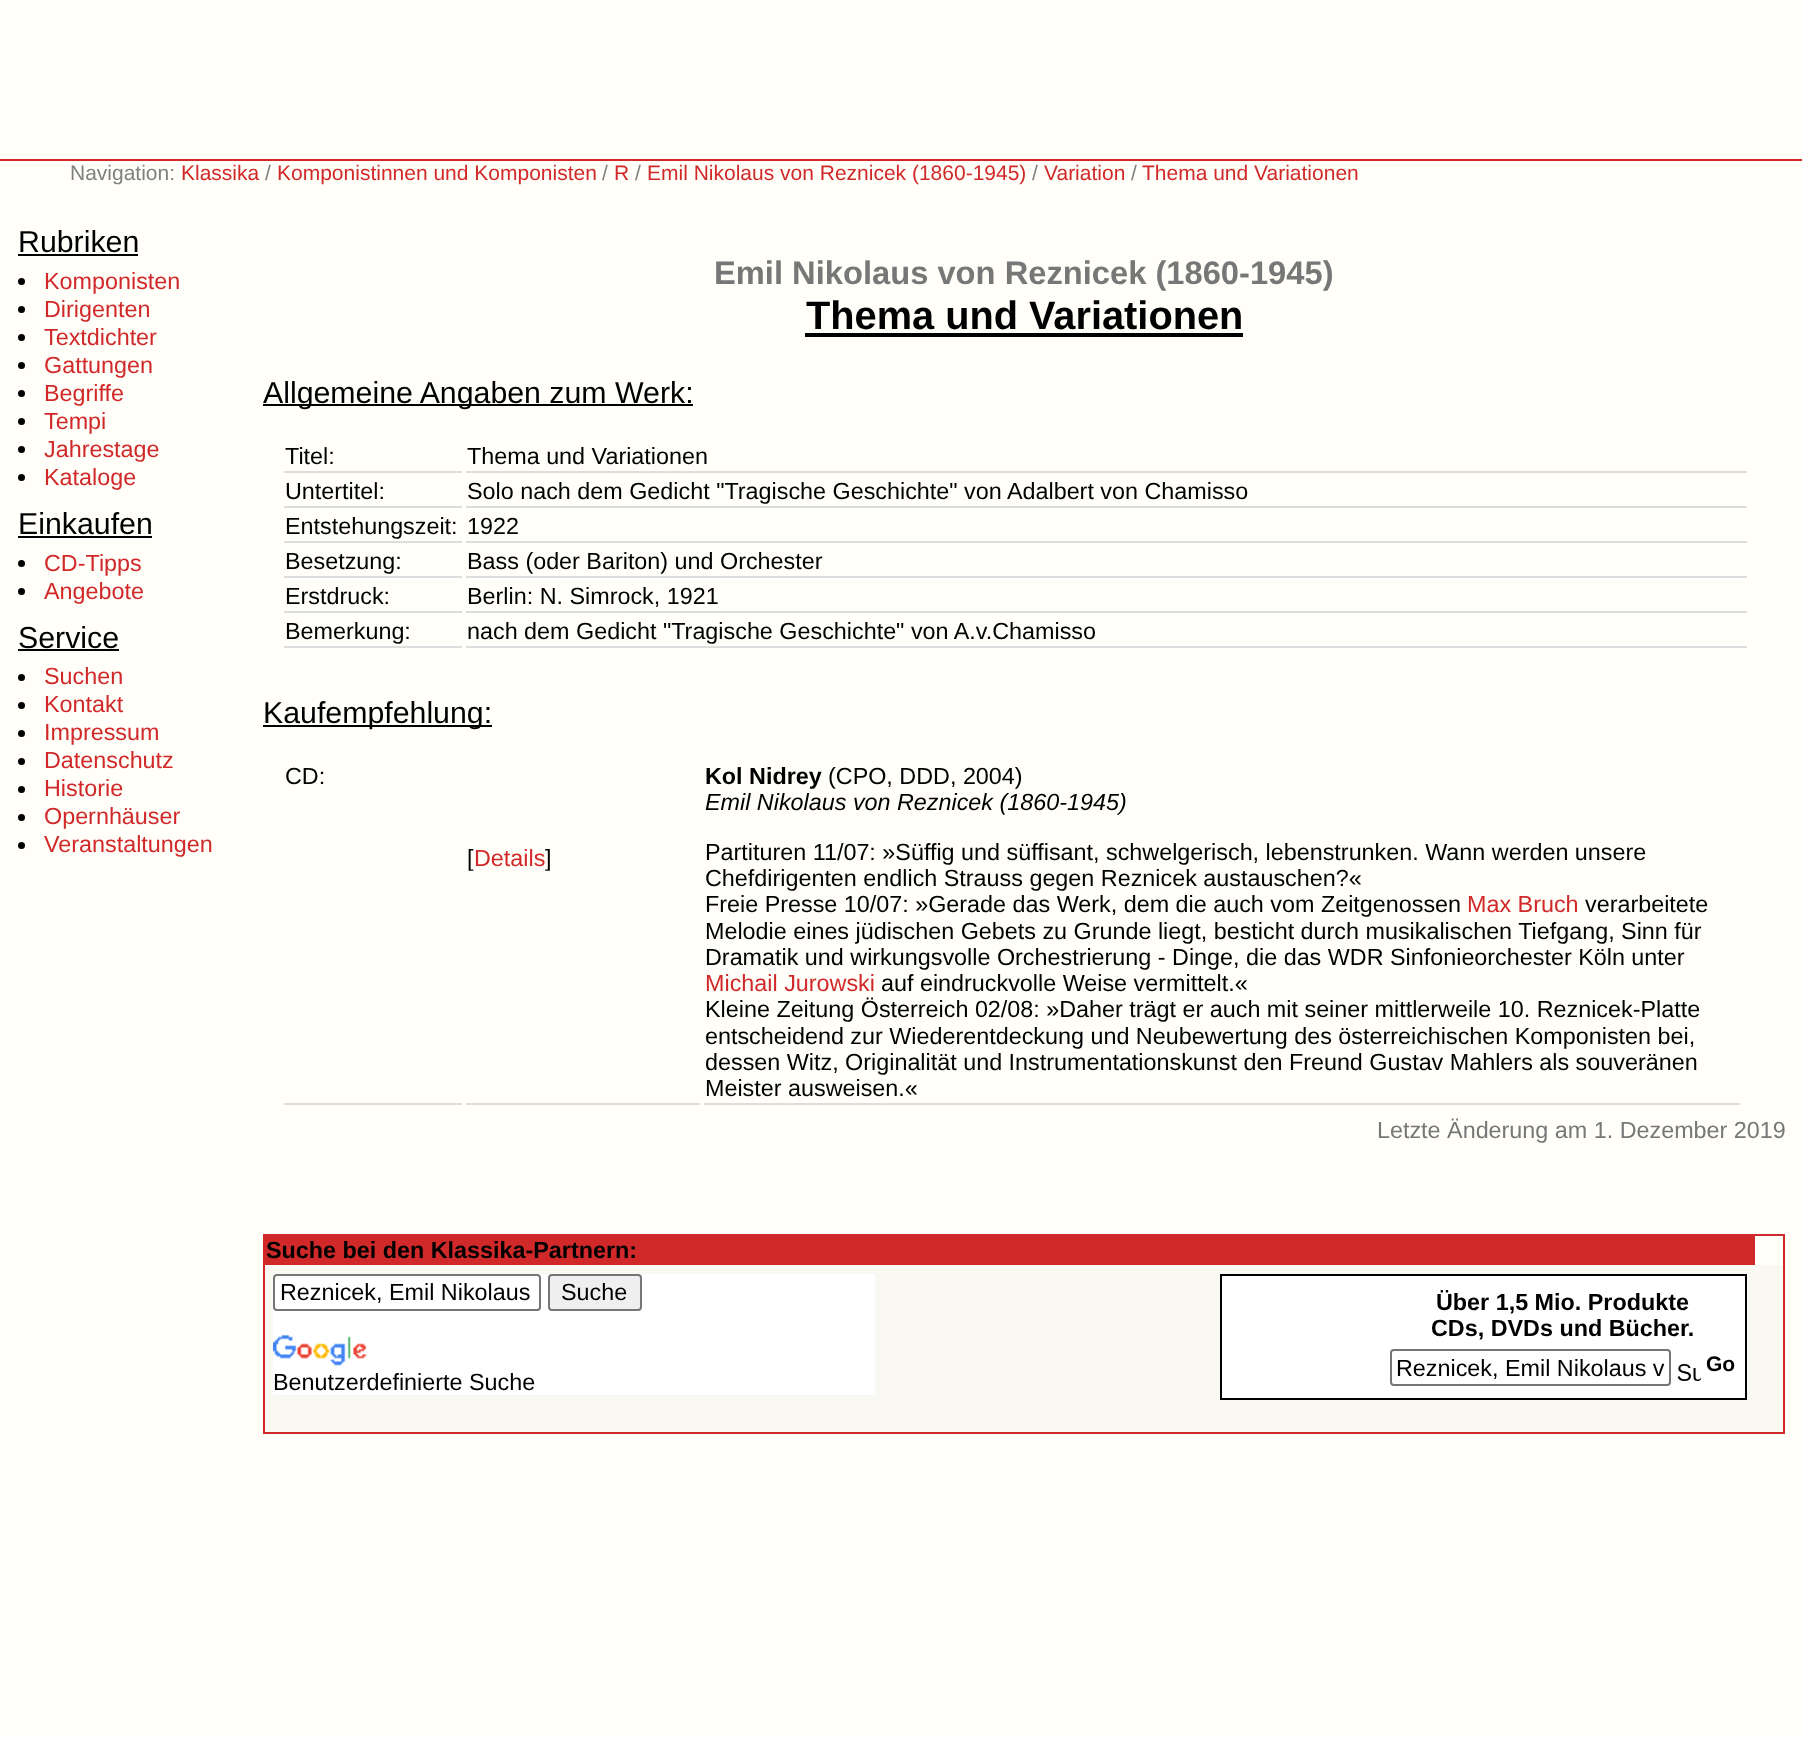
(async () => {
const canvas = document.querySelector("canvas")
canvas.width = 1802
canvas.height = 1737
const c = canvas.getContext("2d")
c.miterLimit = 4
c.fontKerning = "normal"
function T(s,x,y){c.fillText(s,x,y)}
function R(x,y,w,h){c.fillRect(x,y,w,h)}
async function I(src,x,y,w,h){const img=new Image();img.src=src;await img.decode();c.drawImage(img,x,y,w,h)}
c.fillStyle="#fffef9"
R(0,0,1802,1737)
c.fillStyle="#d12929"
R(0,159,1802,2)
c.font="21px Liberation Sans"
c.fillStyle="#808080"
T("Navigation:",70,180)
c.fillStyle="#d12929"
T("Klassika",181,180)
c.fillStyle="#808080"
T("/",265,180)
c.fillStyle="#d12929"
T("Komponistinnen und Komponisten",277,180)
c.fillStyle="#808080"
T("/",602,180)
c.fillStyle="#d12929"
T("R",614,180)
c.fillStyle="#808080"
T("/",635,180)
c.fillStyle="#d12929"
T("Emil Nikolaus von Reznicek (1860-1945)",647,180)
c.fillStyle="#808080"
T("/",1032,180)
c.fillStyle="#d12929"
T("Variation",1044,180)
c.fillStyle="#808080"
T("/",1131,180)
c.fillStyle="#d12929"
T("Thema und Variationen",1142,180)
c.font="30.3px Liberation Sans"
c.fillStyle="#000"
T("Rubriken",18,252)
R(18,254,120,2)
c.beginPath()
c.arc(21.5,281.5,3.5,0,7)
c.fill()
c.font="23.35px Liberation Sans"
c.fillStyle="#d12929"
T("Komponisten",44,289)
c.fillStyle="#000"
c.beginPath()
c.arc(21.5,309.5,3.5,0,7)
c.fill()
c.fillStyle="#d12929"
T("Dirigenten",44,317)
c.fillStyle="#000"
c.beginPath()
c.arc(21.5,337.5,3.5,0,7)
c.fill()
c.fillStyle="#d12929"
T("Textdichter",44,345)
c.fillStyle="#000"
c.beginPath()
c.arc(21.5,365.5,3.5,0,7)
c.fill()
c.fillStyle="#d12929"
T("Gattungen",44,373)
c.fillStyle="#000"
c.beginPath()
c.arc(21.5,393.5,3.5,0,7)
c.fill()
c.fillStyle="#d12929"
T("Begriffe",44,401)
c.fillStyle="#000"
c.beginPath()
c.arc(21.5,421.5,3.5,0,7)
c.fill()
c.fillStyle="#d12929"
T("Tempi",44,429)
c.fillStyle="#000"
c.beginPath()
c.arc(21.5,449.5,3.5,0,7)
c.fill()
c.fillStyle="#d12929"
T("Jahrestage",44,457)
c.fillStyle="#000"
c.beginPath()
c.arc(21.5,477.5,3.5,0,7)
c.fill()
c.fillStyle="#d12929"
T("Kataloge",44,485)
c.font="30.3px Liberation Sans"
c.fillStyle="#000"
T("Einkaufen",18,534)
R(18,536,134,2)
c.beginPath()
c.arc(21.5,563.5,3.5,0,7)
c.fill()
c.font="23.35px Liberation Sans"
c.fillStyle="#d12929"
T("CD-Tipps",44,571)
c.fillStyle="#000"
c.beginPath()
c.arc(21.5,591.5,3.5,0,7)
c.fill()
c.fillStyle="#d12929"
T("Angebote",44,599)
c.font="30.3px Liberation Sans"
c.fillStyle="#000"
T("Service",18,648)
R(18,649,101,2)
c.beginPath()
c.arc(21.5,677.5,3.5,0,7)
c.fill()
c.font="23.35px Liberation Sans"
c.fillStyle="#d12929"
T("Suchen",44,684)
c.fillStyle="#000"
c.beginPath()
c.arc(21.5,705.5,3.5,0,7)
c.fill()
c.fillStyle="#d12929"
T("Kontakt",44,712)
c.fillStyle="#000"
c.beginPath()
c.arc(21.5,733.5,3.5,0,7)
c.fill()
c.fillStyle="#d12929"
T("Impressum",44,740)
c.fillStyle="#000"
c.beginPath()
c.arc(21.5,761.5,3.5,0,7)
c.fill()
c.fillStyle="#d12929"
T("Datenschutz",44,768)
c.fillStyle="#000"
c.beginPath()
c.arc(21.5,789.5,3.5,0,7)
c.fill()
c.fillStyle="#d12929"
T("Historie",44,796)
c.fillStyle="#000"
c.beginPath()
c.arc(21.5,817.5,3.5,0,7)
c.fill()
c.fillStyle="#d12929"
T("Opernhäuser",44,824)
c.fillStyle="#000"
c.beginPath()
c.arc(21.5,845.5,3.5,0,7)
c.fill()
c.fillStyle="#d12929"
T("Veranstaltungen",44,852)
c.font="bold 32.7px Liberation Sans"
c.fillStyle="#777"
T("Emil Nikolaus von Reznicek (1860-1945)",714,284)
c.font="bold 39.75px Liberation Sans"
c.fillStyle="#000"
T("Thema und Variationen",806,329)
R(805,333,438,4)
R(263,404,430,2)
c.font="30.3px Liberation Sans"
T("Allgemeine Angaben zum Werk:",263,403)
c.fillStyle="#ddd"
R(284,471,178,2)
c.font="23.35px Liberation Sans"
c.fillStyle="#000"
T("Titel:",285,464)
c.fillStyle="#ddd"
R(466,471,1281,2)
c.fillStyle="#000"
T("Thema und Variationen",467,464)
c.fillStyle="#ddd"
R(284,506,178,2)
c.fillStyle="#000"
T("Untertitel:",285,499)
c.fillStyle="#ddd"
R(466,506,1281,2)
c.fillStyle="#000"
T("Solo nach dem Gedicht \"Tragische Geschichte\" von Adalbert von Chamisso",467,499)
c.fillStyle="#ddd"
R(284,541,178,2)
c.fillStyle="#000"
T("Entstehungszeit:",285,534)
c.fillStyle="#ddd"
R(466,541,1281,2)
c.fillStyle="#000"
T("1922",467,534)
c.fillStyle="#ddd"
R(284,576,178,2)
c.fillStyle="#000"
T("Besetzung:",285,569)
c.fillStyle="#ddd"
R(466,576,1281,2)
c.fillStyle="#000"
T("Bass (oder Bariton) und Orchester",467,569)
c.fillStyle="#ddd"
R(284,611,178,2)
c.fillStyle="#000"
T("Erstdruck:",285,604)
c.fillStyle="#ddd"
R(466,611,1281,2)
c.fillStyle="#000"
T("Berlin: N. Simrock, 1921",467,604)
c.fillStyle="#ddd"
R(284,646,178,2)
c.fillStyle="#000"
T("Bemerkung:",285,639)
c.fillStyle="#ddd"
R(466,646,1281,2)
c.fillStyle="#000"
T("nach dem Gedicht \"Tragische Geschichte\" von A.v.Chamisso",467,639)
R(263,725,229,2)
c.font="30.3px Liberation Sans"
T("Kaufempfehlung:",263,723)
c.fillStyle="#ddd"
R(284,1103,178,2)
c.font="23.35px Liberation Sans"
c.fillStyle="#000"
T("CD:",285,784)
c.fillStyle="#ddd"
R(466,1103,234,2)
c.fillStyle="#000"
T("[",467,866)
c.fillStyle="#d12929"
T("Details",474,866)
c.fillStyle="#000"
T("]",545,866)
c.fillStyle="#ddd"
R(704,1103,1036,2)
c.font="bold 23.35px Liberation Sans"
c.fillStyle="#000"
T("Kol Nidrey",705,784)
c.font="23.35px Liberation Sans"
T("(CPO, DDD, 2004)",828,784)
c.font="italic 23.35px Liberation Sans"
T("Emil Nikolaus von Reznicek (1860-1945)",705,810)
c.font="23.35px Liberation Sans"
T("Partituren 11/07: »Süffig und süffisant, schwelgerisch, lebenstrunken. Wann werden unsere",705,860)
T("Chefdirigenten endlich Strauss gegen Reznicek austauschen?«",705,886)
T("Freie Presse 10/07: »Gerade das Werk, dem die auch vom Zeitgenossen",705,912)
c.fillStyle="#d12929"
T("Max Bruch",1467,912)
c.fillStyle="#000"
T("verarbeitete",1585,912)
T("Melodie eines jüdischen Gebets zu Grunde liegt, besticht durch musikalischen Tiefgang, Sinn für",705,939)
T("Dramatik und wirkungsvolle Orchestrierung - Dinge, die das WDR Sinfonieorchester Köln unter",705,965)
c.fillStyle="#d12929"
T("Michail Jurowski",705,991)
c.fillStyle="#000"
T("auf eindruckvolle Weise vermittelt.«",881,991)
T("Kleine Zeitung Österreich 02/08: »Daher trägt er auch mit seiner mittlerweile 10. Reznicek-Platte",705,1017)
T("entscheidend zur Wiederentdeckung und Neubewertung des österreichischen Komponisten bei,",705,1044)
T("dessen Witz, Originalität und Instrumentationskunst den Freund Gustav Mahlers als souveränen",705,1070)
T("Meister ausweisen.«",705,1096)
c.fillStyle="#777"
T("Letzte Änderung am 1. Dezember 2019",1377,1138)
c.fillStyle="#d12929"
R(263,1234,1522,2)
R(1783,1234,2,199)
R(263,1432,1522,2)
R(263,1234,2,199)
R(265,1236,1490,29)
c.font="bold 23.35px Liberation Sans"
c.fillStyle="#000"
T("Suche bei den Klassika-Partnern:",266,1258)
c.fillStyle="#f9f8f3"
R(265,1265,1518,167)
c.fillStyle="#fff"
R(273,1274,602,121)
c.beginPath()
c.roundRect(274,1275,266,35,3)
c.strokeStyle="#767676"
c.lineWidth=2
c.stroke()
c.font="23.35px Liberation Sans"
c.fillStyle="#000"
T("Reznicek, Emil Nikolaus",280,1300)
c.fillStyle="#efefef"
c.beginPath()
c.roundRect(549,1275,92,35,3)
c.fill()
c.stroke()
c.fillStyle="#000"
T("Suche",561,1300)
await I("1.png",273,1334,94,32)
T("Benutzerdefinierte Suche",273,1390)
c.fillStyle="#fff"
c.beginPath()
c.rect(1221,1275,525,124)
c.fill()
c.strokeStyle="#000"
c.stroke()
c.font="bold 23.35px Liberation Sans"
c.fillStyle="#000"
T("Über 1,5 Mio. Produkte",1436,1310)
T("CDs, DVDs und Bücher.",1431,1336)
c.beginPath()
c.roundRect(1391,1350,279,35,3)
c.strokeStyle="#767676"
c.stroke()
c.save()
c.beginPath()
c.rect(1397,1355,267,26)
c.clip()
c.font="23.35px Liberation Sans"
T("Reznicek, Emil Nikolaus v",1396,1376)
c.restore()
await I("2.png",1677,1364,24,17)
c.font="bold 21px Liberation Sans"
T("Go",1706,1371)
})()
